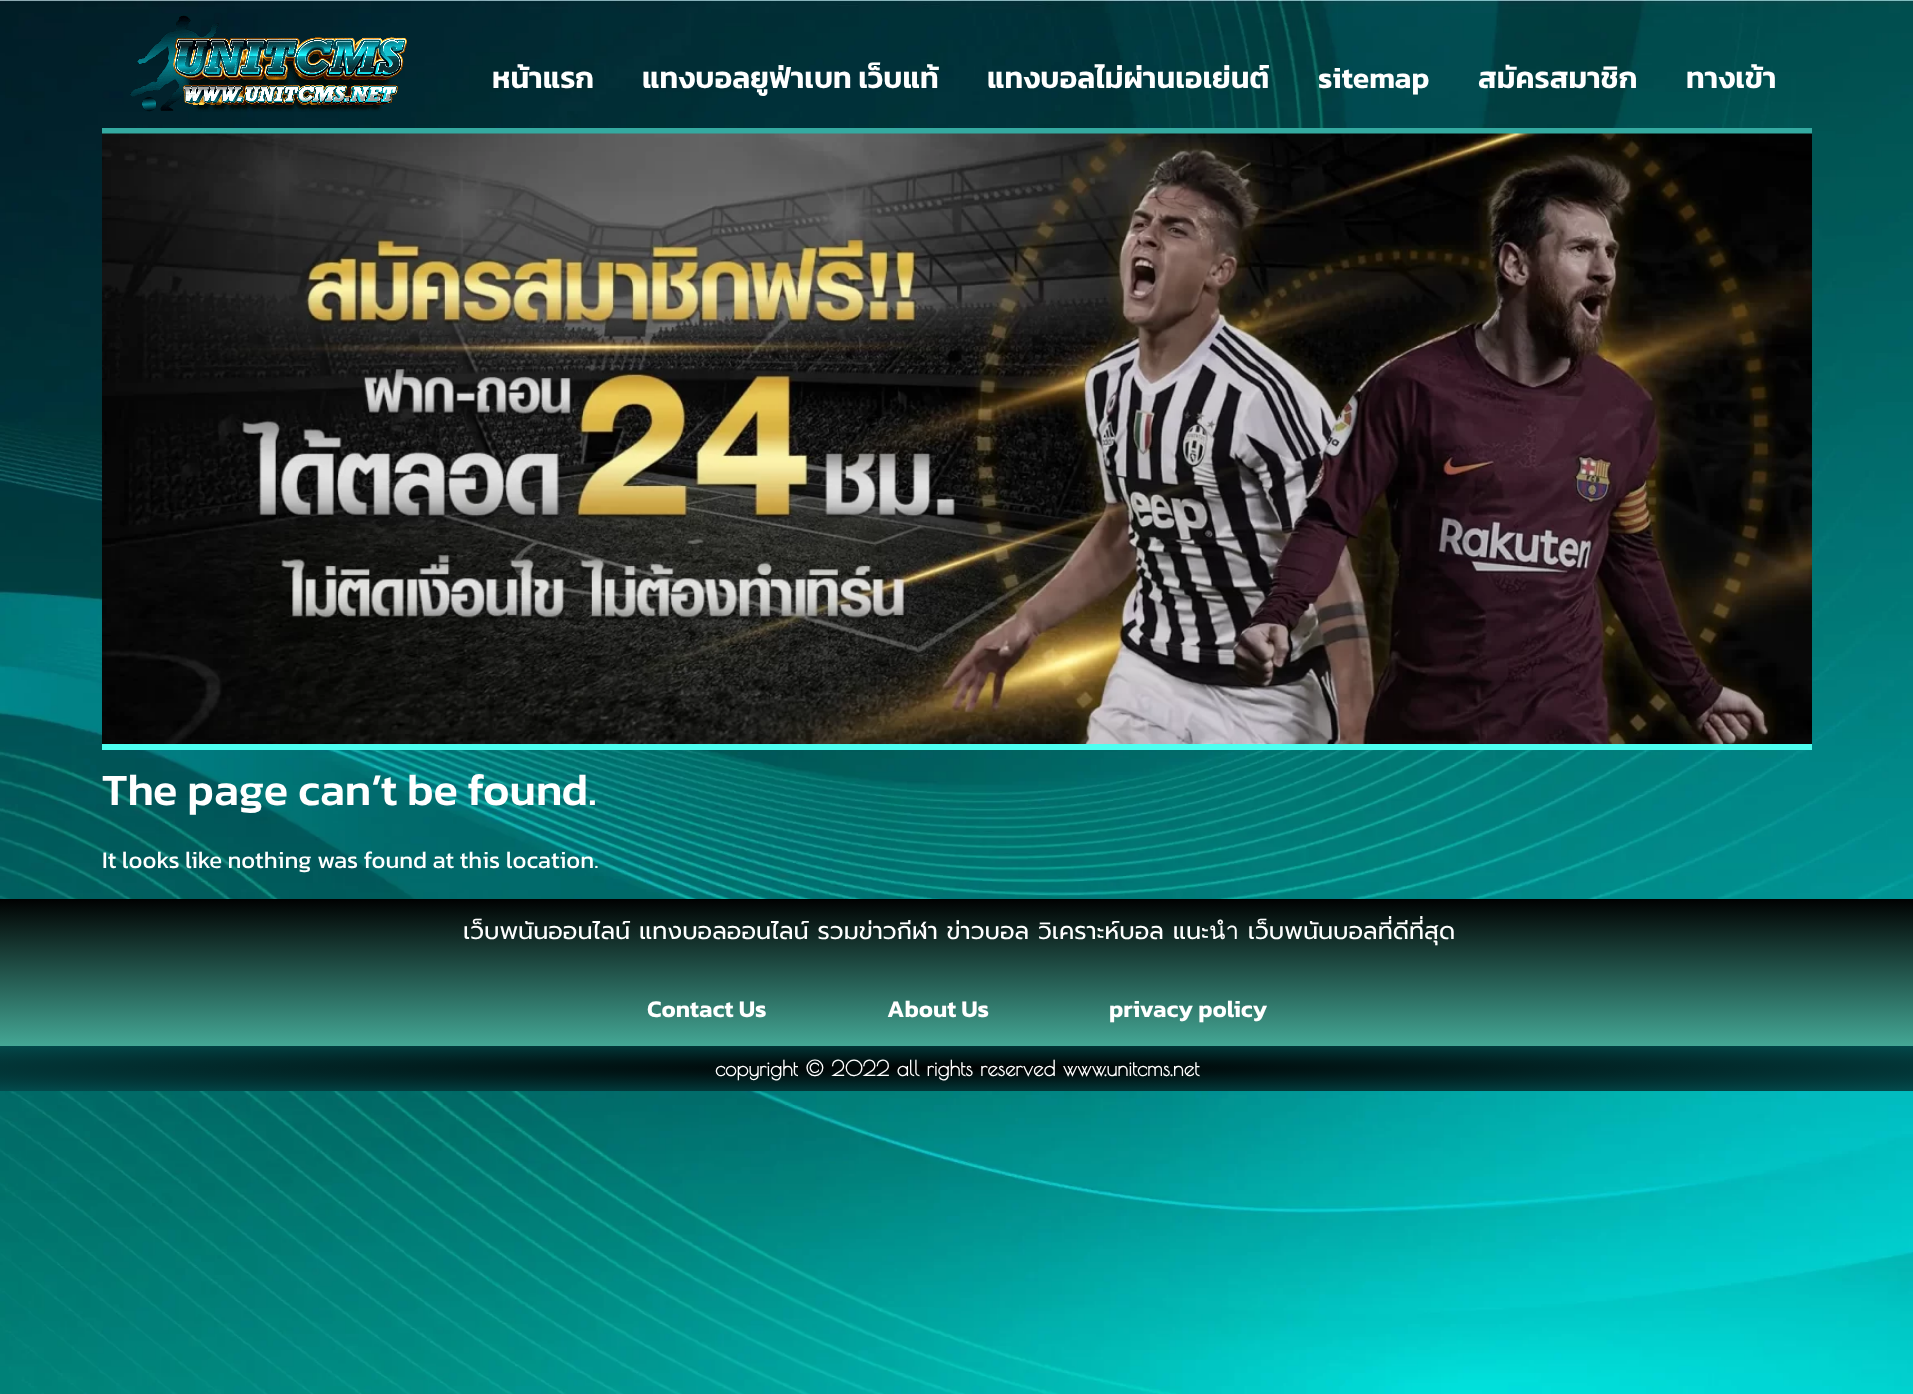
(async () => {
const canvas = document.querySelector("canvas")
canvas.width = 1913
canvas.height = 1394
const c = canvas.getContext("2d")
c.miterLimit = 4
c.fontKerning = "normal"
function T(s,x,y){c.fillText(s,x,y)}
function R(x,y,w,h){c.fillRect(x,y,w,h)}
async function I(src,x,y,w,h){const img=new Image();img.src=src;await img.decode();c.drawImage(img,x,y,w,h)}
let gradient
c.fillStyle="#fff"
R(0,0,1913,1394)
await I("1.png",0,0,1913,1394)
await I("2.png",130,15,278,97)
c.font="600 30px Kanit"
T("หน้าแรก",492,88)
T("แทงบอลยูฟ่าเบท เว็บแท้",642,88)
T("แทงบอลไม่ผ่านเอเย่นต์",987,88)
T("sitemap",1318,88)
T("สมัครสมาชิก",1478,88)
T("ทางเข้า",1686,88)
c.fillStyle="#34aaa1"
R(102,128,1710,6)
c.fillStyle="#4efff1"
R(102,744,1710,6)
await I("3.png",102,133,1710,611)
c.font="500 45px Kanit"
c.fillStyle="#fff"
T("The page can’t be found.",102,805)
c.font="24px Kanit"
T("It looks like nothing was found at this location.",102,868)
gradient = c.createLinearGradient(957,898,957,1046)
gradient.addColorStop(0,"#000")
gradient.addColorStop(1,"#44a795")
c.fillStyle = gradient
R(0,899,1913,147)
c.font="24px Prompt"
c.fillStyle="#fff"
T("เว็บพนันออนไลน์ แทงบอลออนไลน์ รวมข่าวกีฬา ข่าวบอล วิเคราะห์บอล แนะนำ เว็บพนันบอลที่ดีที่สุด",463,939)
c.font="600 24px Kanit"
T("Contact Us",647,1017)
T("About Us",887,1017)
T("privacy policy",1109,1017)
gradient = c.createRadialGradient(957,45156.38,0,957,45156.38,1353)
gradient.addColorStop(0,"#000")
gradient.addColorStop(1,"#034b4d")
c.fillStyle = gradient
c.beginPath()
c.rect(0,1046,1913,45)
c.save()
c.clip()
c.scale(1,32 / 1353)
c.fillRect(0,0,1913,58941)
c.restore()
c.font="bold 21px Poiret One"
c.fillStyle="#fff"
T("copyright © 2022 all rights reserved www.unitcms.net",715,1076)
})()
